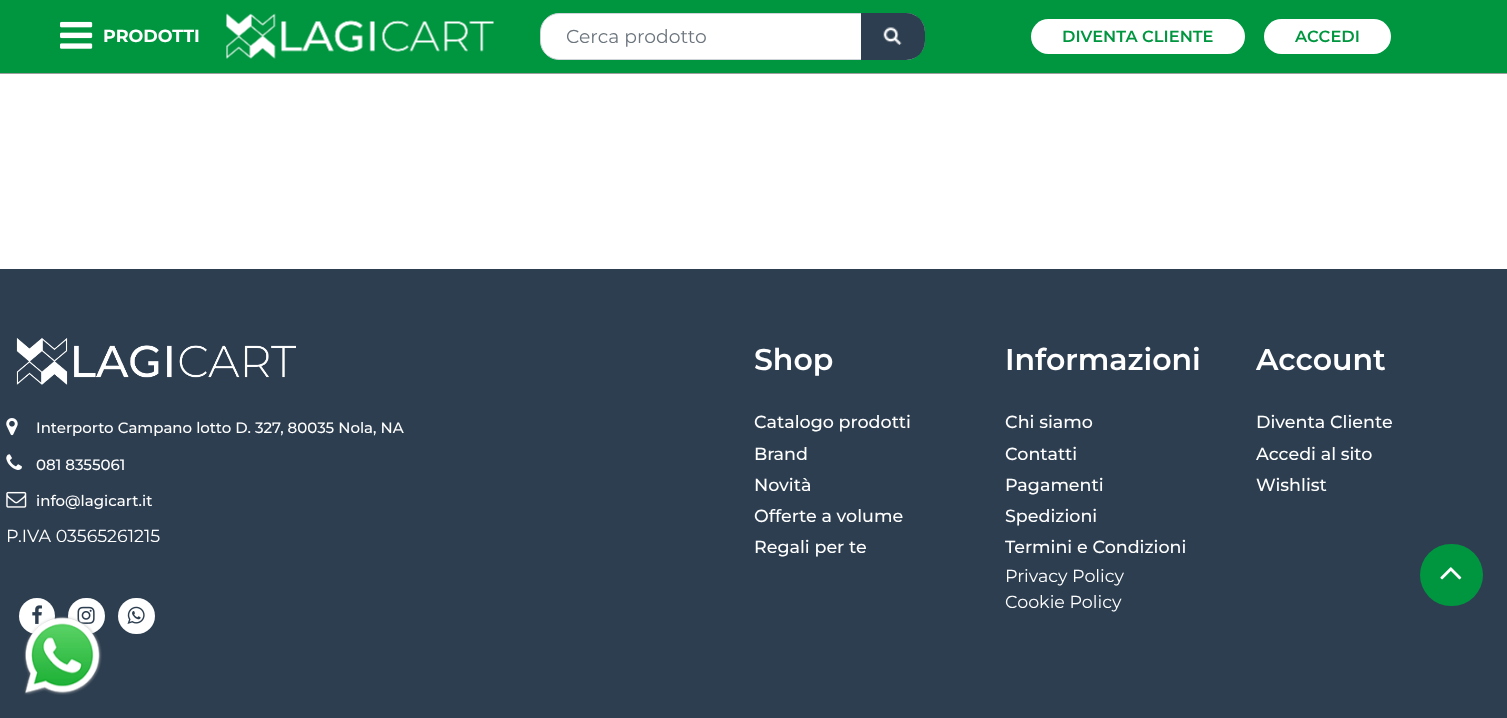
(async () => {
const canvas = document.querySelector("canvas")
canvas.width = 1507
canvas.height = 718
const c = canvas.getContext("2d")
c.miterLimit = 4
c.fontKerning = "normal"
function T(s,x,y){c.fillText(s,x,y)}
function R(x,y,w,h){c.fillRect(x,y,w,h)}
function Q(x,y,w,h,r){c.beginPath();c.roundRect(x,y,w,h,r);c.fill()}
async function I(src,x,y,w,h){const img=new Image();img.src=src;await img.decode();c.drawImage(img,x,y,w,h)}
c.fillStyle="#fff"
R(0,0,1507,718)
c.fillStyle="#009640"
R(0,0,1507,73)
c.fillStyle="#9b9f9e"
R(0,73,1507,1)
await I("1.png",60,21,33,28)
c.font="bold 17.5px Montserrat"
c.fillStyle="#fff"
T("PRODOTTI",103,42)
await I("2.png",226,13,268,46)
c.beginPath()
c.roundRect(540.5,13.5,384,46,18.5)
c.fill()
c.strokeStyle="#ced4da"
c.stroke()
c.font="18.75px Montserrat"
c.fillStyle="#6c757d"
T("Cerca prodotto",566,43)
c.fillStyle="#2d3e50"
c.beginPath()
c.roundRect(861,13,64,47,[0,19,19,0])
c.fill()
await I("3.png",883,27,19,18)
c.fillStyle="#fff"
Q(1031,19,214,35,17.5)
c.font="600 16.25px Montserrat"
c.fillStyle="#009640"
T("DIVENTA CLIENTE",1062,42)
c.fillStyle="#fff"
Q(1264,19,127,35,17.5)
c.fillStyle="#009640"
T("ACCEDI",1295,42)
c.fillStyle="#2d3e50"
R(0,269,1507,449)
await I("4.png",16,337,280,48)
await I("5.png",6,418,12,18)
c.font="500 15px Montserrat"
c.fillStyle="#fff"
T("Interporto Campano lotto D. 327, 80035 Nola, NA",36,433)
await I("6.png",6,454,16,16)
T("081 8355061",36,470)
await I("7.png",6,491,21,17)
T("info@lagicart.it",36,506)
c.font="17.5px Montserrat"
T("P.IVA 03565261215",6,542)
c.beginPath()
c.arc(37,616,18,0,7)
c.fill()
await I("8.png",32,605,10,19)
Q(68,598,37,36,18)
await I("9.png",77,606,18,18)
Q(118,598,37,36,18)
await I("10.png",127,606,18,18)
c.font="600 30px Montserrat"
T("Shop",754,370)
c.font="500 17.5px Montserrat"
T("Catalogo prodotti",754,428)
T("Brand",754,460)
T("Novità",754,491)
T("Offerte a volume",754,522)
T("Regali per te",754,553)
c.font="600 30px Montserrat"
T("Informazioni",1005,370)
c.font="500 17.5px Montserrat"
T("Chi siamo",1005,428)
T("Contatti",1005,460)
T("Pagamenti",1005,491)
T("Spedizioni",1005,522)
T("Termini e Condizioni",1005,553)
c.font="17.5px Montserrat"
T("Privacy Policy",1005,582)
T("Cookie Policy",1005,608)
c.font="600 30px Montserrat"
T("Account",1256,370)
c.font="500 17.5px Montserrat"
T("Diventa Cliente",1256,428)
T("Accedi al sito",1256,460)
T("Wishlist",1256,491)
c.fillStyle="#009640"
Q(1420,544,63,62,31)
await I("11.png",1440,567,22,13)
await I("12.png",23,616,79,79)
})()
